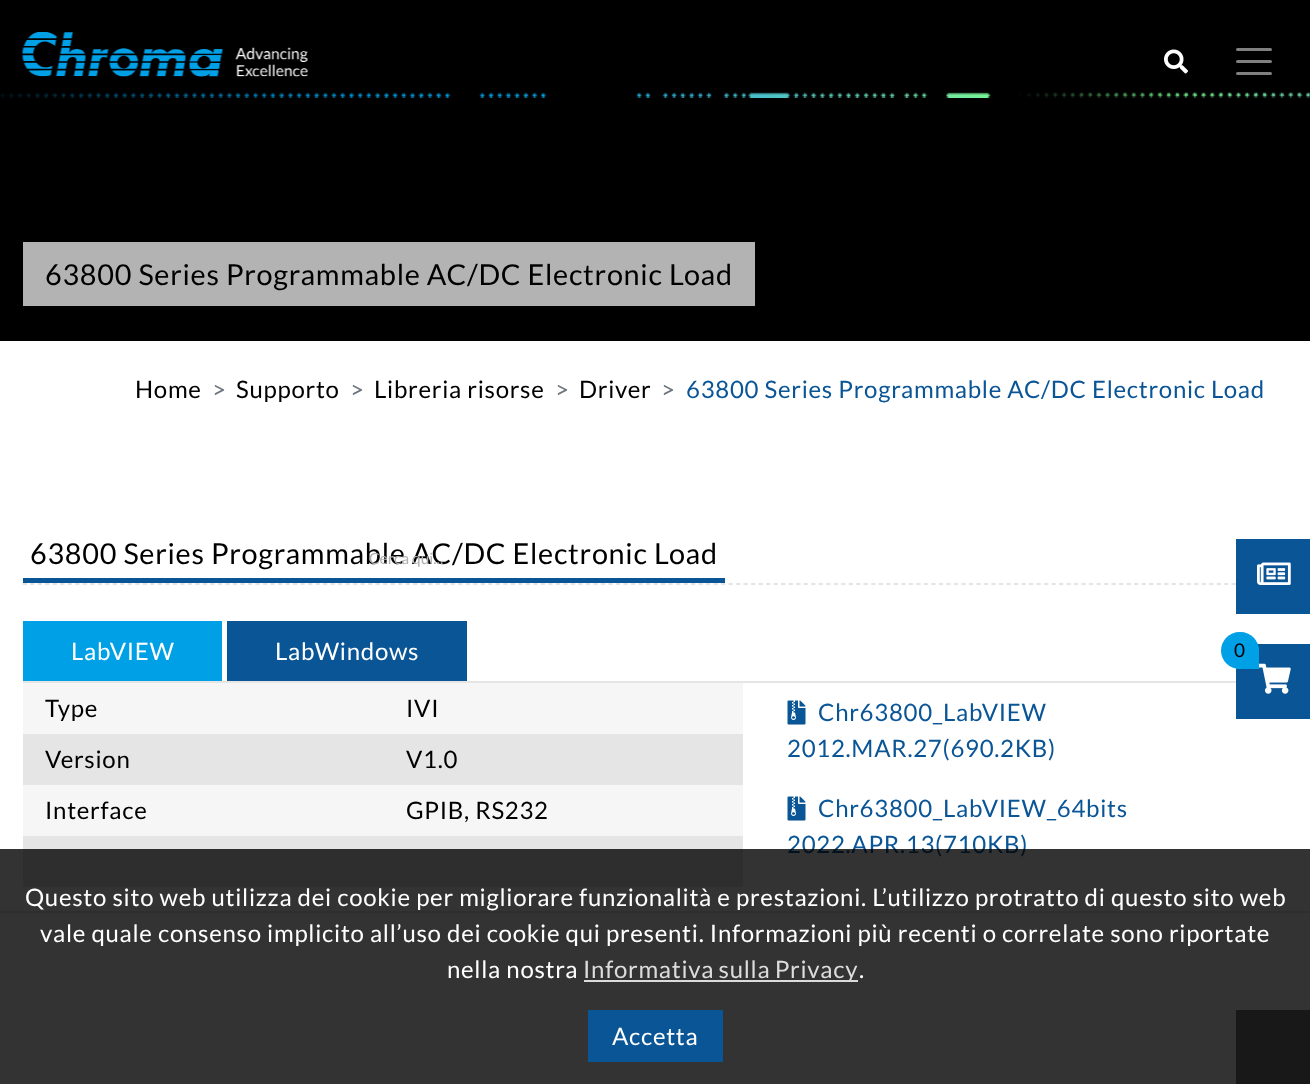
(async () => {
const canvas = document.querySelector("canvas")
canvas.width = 1310
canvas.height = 1084
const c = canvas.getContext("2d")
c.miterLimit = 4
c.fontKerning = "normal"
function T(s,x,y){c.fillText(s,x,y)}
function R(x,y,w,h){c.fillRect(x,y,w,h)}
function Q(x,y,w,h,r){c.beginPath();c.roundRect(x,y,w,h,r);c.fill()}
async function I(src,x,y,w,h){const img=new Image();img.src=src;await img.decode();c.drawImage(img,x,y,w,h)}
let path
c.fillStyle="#000"
R(0,0,1310,1084)
await I("1.png",22,32,286,45)
await I("2.png",1164,49,24,25)
path = new Path2D("M1237.5 49.5h33m-33 12h33m-33 12h33")
c.strokeStyle="#808080"
c.lineWidth=3
c.lineCap="round"
c.stroke(path)
await I("3.png",0,92,1310,6)
c.fillStyle="#b3b3b3"
R(23,242,732,64)
c.letterSpacing="0.72px"
c.font="28.8px Lato"
c.fillStyle="#000"
T("63800 Series Programmable AC/DC Electronic Load",45,285)
c.fillStyle="#fff"
R(0,341,1310,743)
c.font="24px Lato"
c.fillStyle="#000"
T("Home",135,398)
c.fillStyle="#6c757d"
T(">",212,398)
c.fillStyle="#000"
T("Supporto",236,398)
c.fillStyle="#6c757d"
T(">",350,398)
c.fillStyle="#000"
T("Libreria risorse",374,398)
c.fillStyle="#6c757d"
T(">",555,398)
c.fillStyle="#000"
T("Driver",579,398)
c.fillStyle="#6c757d"
T(">",661,398)
c.fillStyle="#0a5596"
T("63800 Series Programmable AC/DC Electronic Load",686,398)
path = new Path2D("M22.5 584h1266")
c.strokeStyle="#ddd"
c.lineWidth=1.5
c.lineCap="butt"
c.setLineDash([4.5,3.01])
c.stroke(path)
c.font="28.8px Lato"
c.fillStyle="#000"
T("63800 Series Programmable AC/DC Electronic Load",30,564)
c.fillStyle="#0a5596"
R(23,578,702,5)
c.fillStyle="#e5e5e5"
R(23,681,1213,2)
c.fillStyle="#00a0e6"
R(23,621,199,60)
c.font="24px Lato"
c.fillStyle="#fff"
T("LabVIEW",71,660)
c.fillStyle="#0a5596"
R(227,621,240,60)
c.fillStyle="#fff"
T("LabWindows",275,660)
c.fillStyle="#e5e5e5"
R(0,911,1310,2)
c.fillStyle="#f6f6f6"
R(23,683,720,51)
c.fillStyle="#000"
T("Type",45,717)
T("IVI",406,717)
c.fillStyle="#e5e5e5"
R(23,734,720,51)
c.fillStyle="#000"
T("Version",45,768)
T("V1.0",406,768)
c.fillStyle="#f6f6f6"
R(23,785,720,51)
c.fillStyle="#000"
T("Interface",45,819)
T("GPIB, RS232",406,819)
c.fillStyle="#e5e5e5"
R(23,836,720,51)
await I("4.png",787,700,19,25)
c.fillStyle="#0a5596"
T("Chr63800_LabVIEW",818,721)
T("2012.MAR.27(690.2KB)",787,757)
await I("4.png",787,796,19,25)
T("Chr63800_LabVIEW_64bits",818,817)
T("2022.APR.13(710KB)",787,853)
c.letterSpacing="0px"
c.font="15.5px Lato"
c.fillStyle="#b1b1b1"
T("Cerca qui...",369,564)
c.fillStyle="#0a5596"
R(1236,539,74,75)
await I("5.png",1257,562,34,23)
R(1236,644,74,75)
c.fillStyle="#00a0e6"
Q(1221,632,38,37,18.5)
R(1236,647,23,22)
c.letterSpacing="0.72px"
c.font="19px Lato"
c.fillStyle="#000"
T("0",1234,657)
await I("6.png",1259,663,32,31)
c.fillStyle="#797979"
R(1236,1010,74,74)
c.fillStyle="#000000cc"
R(0,849,1310,235)
c.font="24px Lato"
c.fillStyle="#fff"
T("Questo sito web utilizza dei cookie per migliorare funzionalità e prestazioni. L’utilizzo protratto di questo sito web",25,906)
T("vale quale consenso implicito all’uso dei cookie qui presenti. Informazioni più recenti o correlate sono riportate",40,942)
T("nella nostra",447,978)
c.fillStyle="#dcdcdc"
R(584,980,274,2)
c.wordSpacing="-1px"
T("Informativa sulla Privacy",583,978)
c.wordSpacing="0px"
c.fillStyle="#fff"
T(".",859,978)
c.fillStyle="#0a5596"
R(588,1010,135,52)
c.fillStyle="#fff"
T("Accetta",612,1045)
})()
